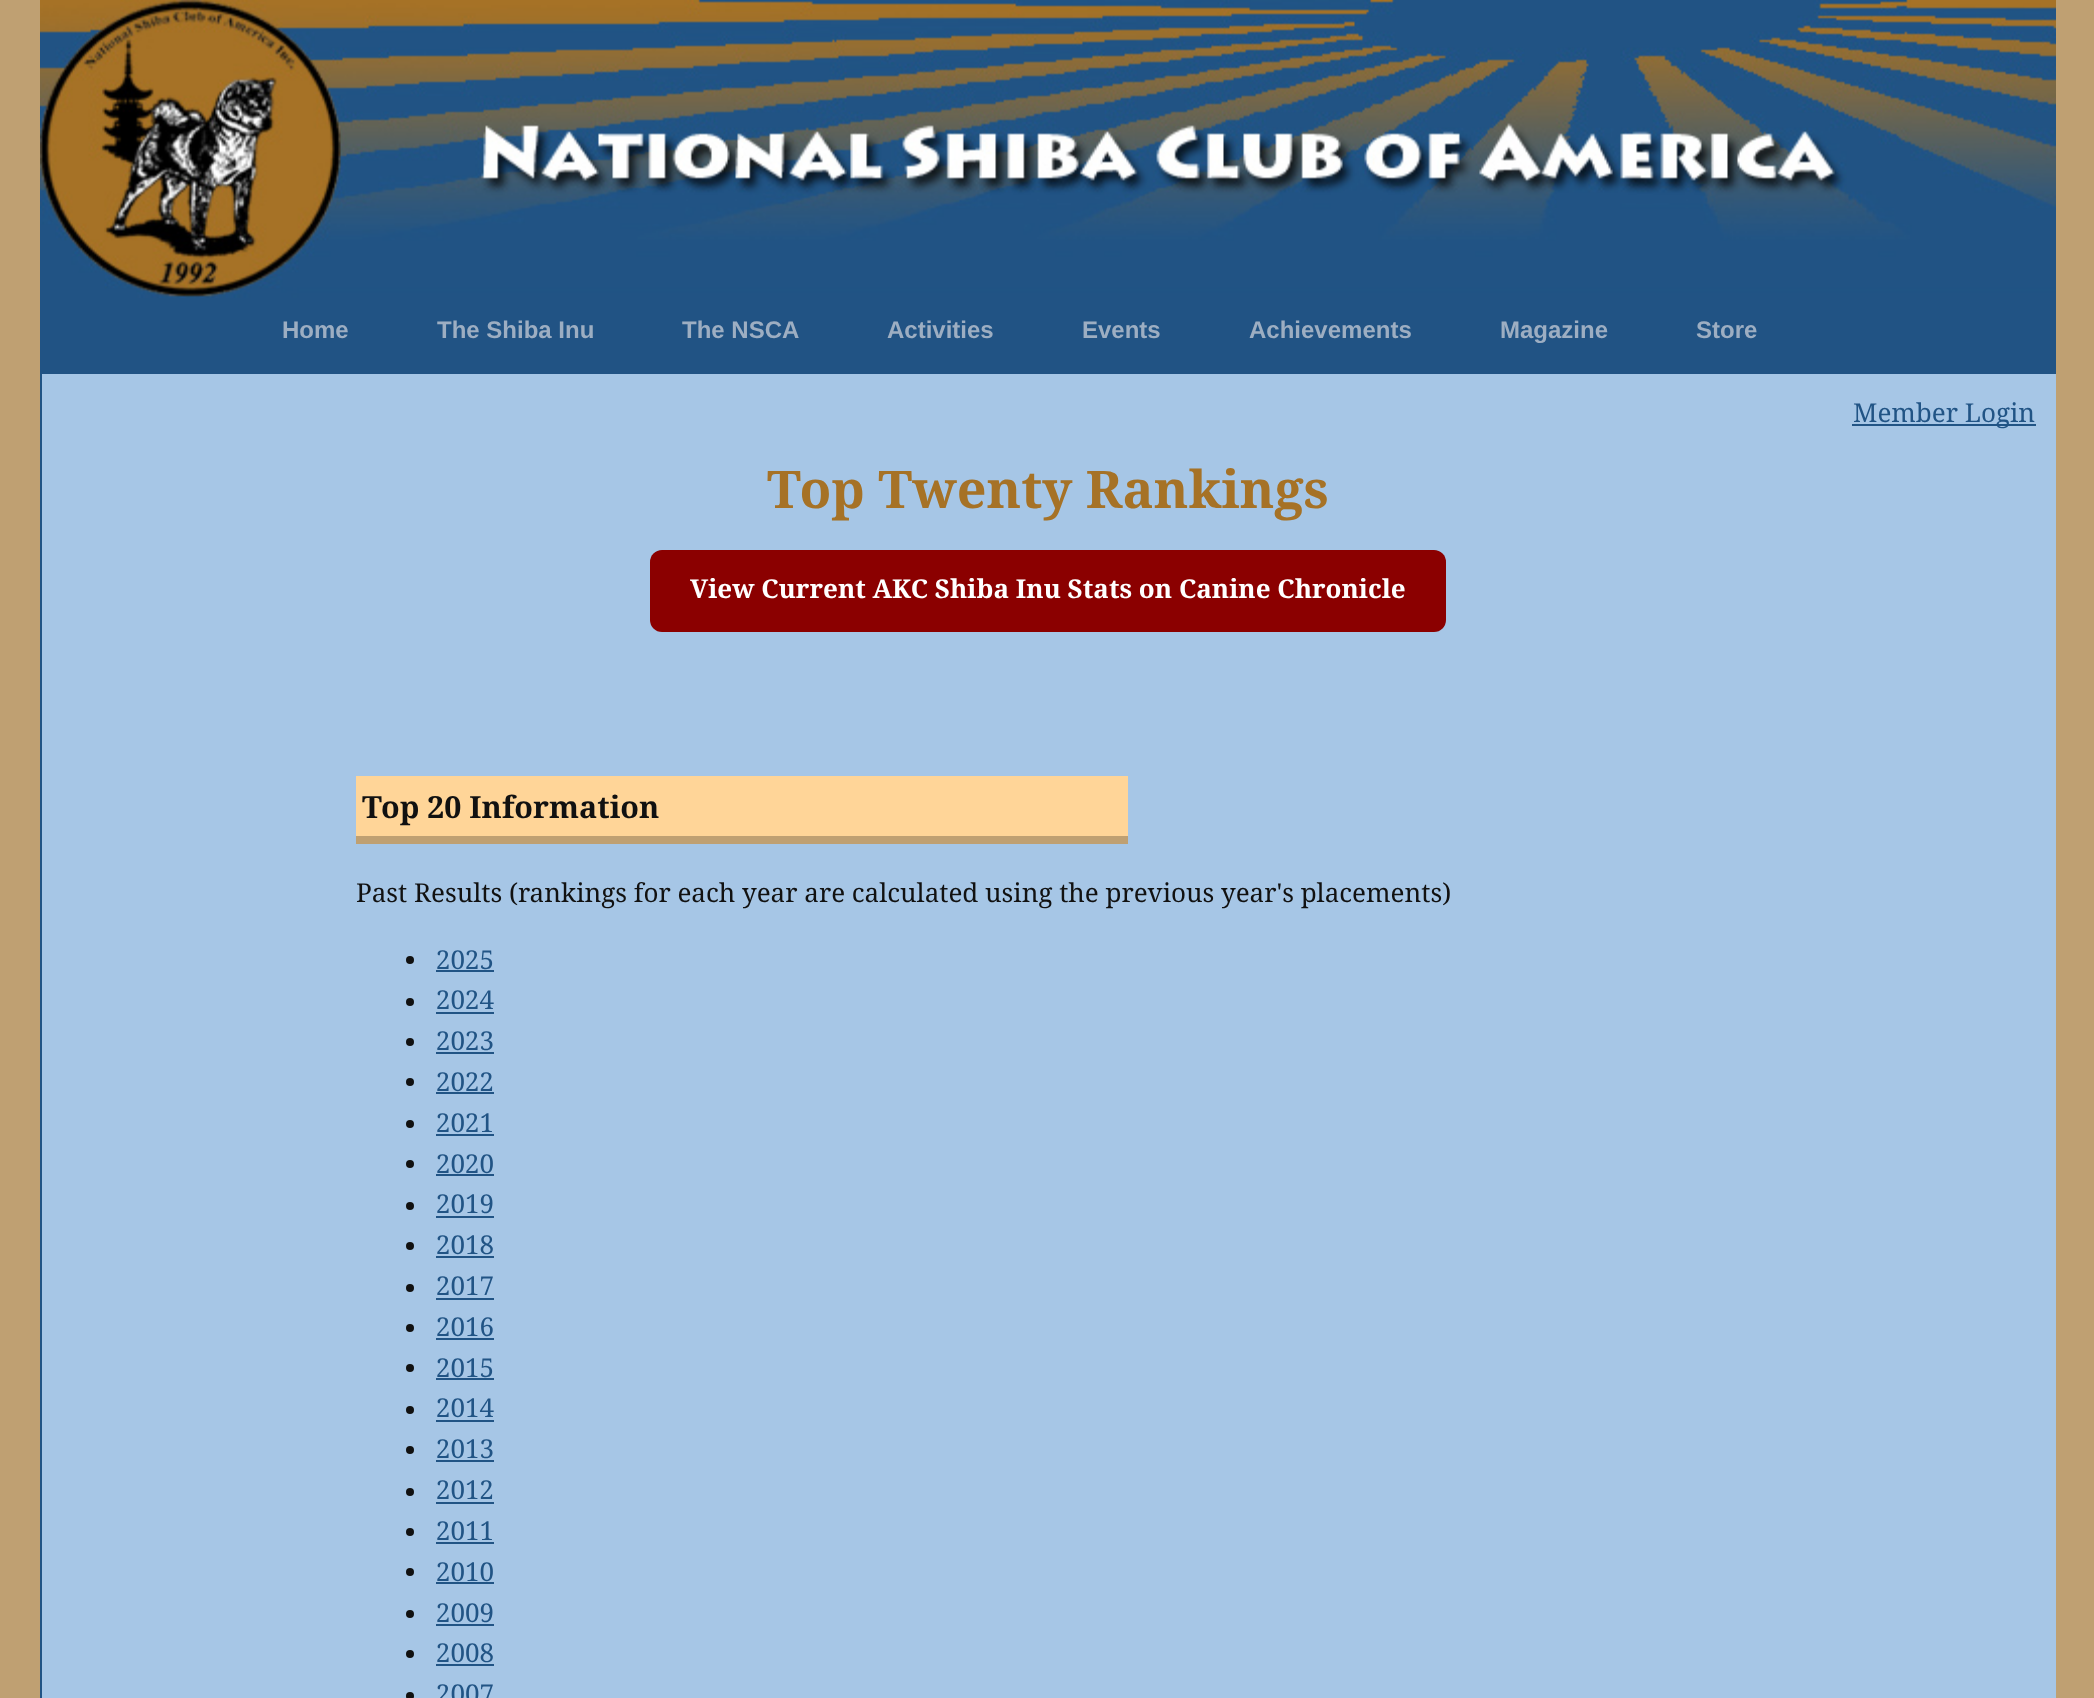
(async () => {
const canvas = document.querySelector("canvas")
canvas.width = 2094
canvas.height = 1698
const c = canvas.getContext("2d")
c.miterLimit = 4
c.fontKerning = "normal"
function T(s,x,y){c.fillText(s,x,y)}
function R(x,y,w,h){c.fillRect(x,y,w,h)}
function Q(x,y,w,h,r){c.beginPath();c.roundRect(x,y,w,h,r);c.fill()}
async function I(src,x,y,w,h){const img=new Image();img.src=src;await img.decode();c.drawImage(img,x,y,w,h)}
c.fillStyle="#bfa072"
R(0,0,2094,1698)
await I("1.png",40,0,2016,298)
c.fillStyle="#215384"
R(40,298,2016,76)
c.font="bold 24px Liberation Sans"
c.fillStyle="#9daec2"
T("Home",282,338)
T("The Shiba Inu",437,338)
T("The NSCA",682,338)
T("Activities",887,338)
T("Events",1082,338)
T("Achievements",1249,338)
T("Magazine",1500,338)
T("Store",1696,338)
c.fillStyle="#a6c6e6"
R(42,374,2014,1324)
c.fillStyle="#215485"
R(40,374,2,1324)
R(1852,424,184,2)
c.font="26px Droid Serif"
T("Member Login",1853,422)
c.font="bold 52px Droid Serif"
c.fillStyle="#a67226"
T("Top Twenty Rankings",767,508)
c.fillStyle="#8b0000"
Q(650,550,796,82,12)
c.font="bold 26px Droid Serif"
c.fillStyle="#fff"
T("View Current AKC Shiba Inu Stats on Canine Chronicle",690,598)
c.fillStyle="#ffd598"
R(356,776,772,60)
c.fillStyle="#bfa072"
R(356,836,772,8)
c.font="bold 30.5px Droid Serif"
c.fillStyle="#111"
T("Top 20 Information",362,818)
c.font="26px Droid Serif"
T("Past Results (rankings for each year are calculated using the previous year's placements)",356,902)
c.beginPath()
c.arc(410,960,4,0,7)
c.fill()
c.fillStyle="#215485"
T("2025",436,969)
R(436,970,58,2)
c.fillStyle="#111"
c.beginPath()
c.arc(410,1002,4,0,7)
c.fill()
c.fillStyle="#215485"
T("2024",436,1009)
R(436,1012,58,2)
c.fillStyle="#111"
c.beginPath()
c.arc(410,1042,4,0,7)
c.fill()
c.fillStyle="#215485"
T("2023",436,1050)
R(436,1052,58,2)
c.fillStyle="#111"
c.beginPath()
c.arc(410,1082,4,0,7)
c.fill()
c.fillStyle="#215485"
T("2022",436,1091)
R(436,1092,58,2)
c.fillStyle="#111"
c.beginPath()
c.arc(410,1124,4,0,7)
c.fill()
c.fillStyle="#215485"
T("2021",436,1132)
R(436,1134,58,2)
c.fillStyle="#111"
c.beginPath()
c.arc(410,1164,4,0,7)
c.fill()
c.fillStyle="#215485"
T("2020",436,1173)
R(436,1174,58,2)
c.fillStyle="#111"
c.beginPath()
c.arc(410,1206,4,0,7)
c.fill()
c.fillStyle="#215485"
T("2019",436,1213)
R(436,1216,58,2)
c.fillStyle="#111"
c.beginPath()
c.arc(410,1246,4,0,7)
c.fill()
c.fillStyle="#215485"
T("2018",436,1254)
R(436,1256,58,2)
c.fillStyle="#111"
c.beginPath()
c.arc(410,1288,4,0,7)
c.fill()
c.fillStyle="#215485"
T("2017",436,1295)
R(436,1298,58,2)
c.fillStyle="#111"
c.beginPath()
c.arc(410,1328,4,0,7)
c.fill()
c.fillStyle="#215485"
T("2016",436,1336)
R(436,1338,58,2)
c.fillStyle="#111"
c.beginPath()
c.arc(410,1368,4,0,7)
c.fill()
c.fillStyle="#215485"
T("2015",436,1377)
R(436,1378,58,2)
c.fillStyle="#111"
c.beginPath()
c.arc(410,1410,4,0,7)
c.fill()
c.fillStyle="#215485"
T("2014",436,1417)
R(436,1420,58,2)
c.fillStyle="#111"
c.beginPath()
c.arc(410,1450,4,0,7)
c.fill()
c.fillStyle="#215485"
T("2013",436,1458)
R(436,1460,58,2)
c.fillStyle="#111"
c.beginPath()
c.arc(410,1492,4,0,7)
c.fill()
c.fillStyle="#215485"
T("2012",436,1499)
R(436,1502,58,2)
c.fillStyle="#111"
c.beginPath()
c.arc(410,1532,4,0,7)
c.fill()
c.fillStyle="#215485"
T("2011",436,1540)
R(436,1542,58,2)
c.fillStyle="#111"
c.beginPath()
c.arc(410,1572,4,0,7)
c.fill()
c.fillStyle="#215485"
T("2010",436,1581)
R(436,1582,58,2)
c.fillStyle="#111"
c.beginPath()
c.arc(410,1614,4,0,7)
c.fill()
c.fillStyle="#215485"
T("2009",436,1622)
R(436,1624,58,2)
c.fillStyle="#111"
c.beginPath()
c.arc(410,1654,4,0,7)
c.fill()
c.fillStyle="#215485"
T("2008",436,1662)
R(436,1664,58,2)
c.fillStyle="#111"
c.beginPath()
c.arc(410,1696,4,0,7)
c.fill()
c.fillStyle="#215485"
T("2007",436,1703)
})()
